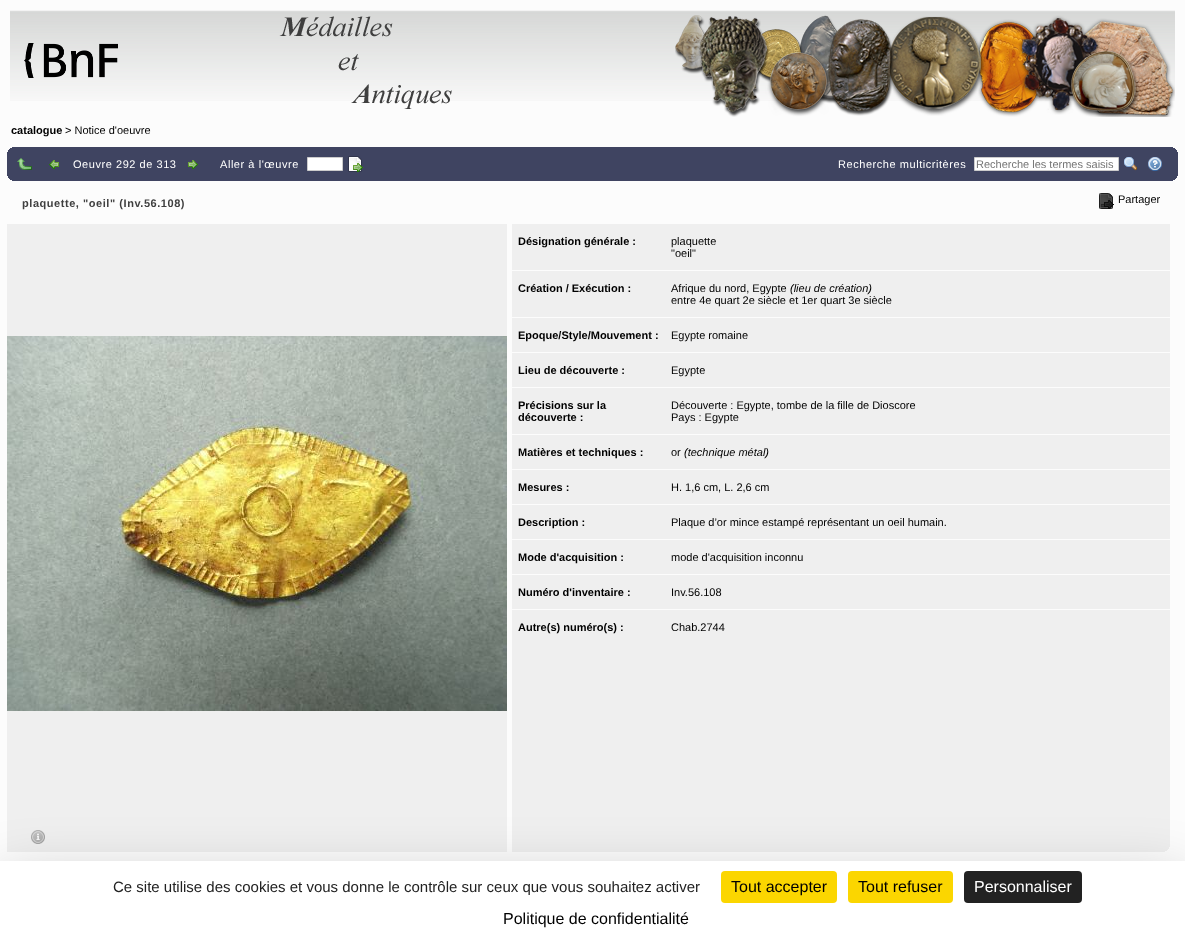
(async () => {
const canvas = document.querySelector("canvas")
canvas.width = 1185
canvas.height = 945
const c = canvas.getContext("2d")
c.miterLimit = 4
c.fontKerning = "normal"
function T(s,x,y){c.fillText(s,x,y)}
function R(x,y,w,h){c.fillRect(x,y,w,h)}
function Q(x,y,w,h,r){c.beginPath();c.roundRect(x,y,w,h,r);c.fill()}
async function I(src,x,y,w,h){const img=new Image();img.src=src;await img.decode();c.drawImage(img,x,y,w,h)}
c.fillStyle="#fcfcfc"
R(0,0,1185,945)
await I("1.png",10,10,1165,91)
await I("2.png",24,16,428,93)
await I("3.png",675,15,500,102)
c.font="bold 11px Liberation Sans"
c.fillStyle="#000"
T("catalogue",11,134)
c.font="11px Liberation Sans"
T("> Notice d'oeuvre",65,134)
c.fillStyle="#3f4461"
R(7,147,1171,34)
await I("4.png",7,147,5,5)
await I("5.png",1173,147,5,5)
await I("6.png",7,176,5,5)
await I("7.png",17,158,15,12)
await I("8.png",49,160,10,9)
c.letterSpacing="0.55px"
c.fillStyle="#fff"
T("Oeuvre 292 de 313",73,168)
await I("9.png",188,160,10,9)
T("Aller à l'œuvre",220,168)
c.beginPath()
c.rect(307.5,157.5,35,13)
c.fill()
c.strokeStyle="#ccc"
c.stroke()
await I("10.png",348,156,15,16)
await I("11.png",1173,176,5,5)
T("Recherche multicritères",838,168)
c.beginPath()
c.rect(974.5,157.5,144,13)
c.fill()
c.stroke()
c.letterSpacing="0px"
c.fillStyle="#757575"
T("Recherche les termes saisis",976,168)
await I("12.png",1124,157,13,14)
await I("13.png",1148,157,14,14)
c.letterSpacing="0.55px"
c.font="bold 11px Liberation Sans"
c.fillStyle="#3f3f3f"
T("plaquette, \"oeil\" (Inv.56.108)",22,207)
await I("14.png",1099,193,15,16)
c.letterSpacing="0px"
c.font="11px Liberation Sans"
c.fillStyle="#000"
T("Partager",1118,203)
c.fillStyle="#efefef"
R(7,224,500,628)
await I("15.png",31,830,14,14)
await I("16.png",7,336,500,375)
R(512,224,658,628)
await I("17.png",1165,847,5,5)
c.font="bold 11px Liberation Sans"
c.fillStyle="#000"
T("Désignation générale :",518,245)
c.font="11px Liberation Sans"
T("plaquette",671,245)
T("\"oeil\"",671,257)
c.fillStyle="#fcfcfc"
R(512,270,658,1)
c.font="bold 11px Liberation Sans"
c.fillStyle="#000"
T("Création / Exécution :",518,292)
c.font="11px Liberation Sans"
T("Afrique du nord, Egypte",671,292)
c.font="italic 11px Liberation Sans"
T("(lieu de création)",790,292)
c.font="11px Liberation Sans"
T("entre 4e quart 2e siècle et 1er quart 3e siècle",671,304)
c.fillStyle="#fcfcfc"
R(512,317,658,1)
c.font="bold 11px Liberation Sans"
c.fillStyle="#000"
T("Epoque/Style/Mouvement :",518,339)
c.font="11px Liberation Sans"
T("Egypte romaine",671,339)
c.fillStyle="#fcfcfc"
R(512,352,658,1)
c.font="bold 11px Liberation Sans"
c.fillStyle="#000"
T("Lieu de découverte :",518,374)
c.font="11px Liberation Sans"
T("Egypte",671,374)
c.fillStyle="#fcfcfc"
R(512,387,658,1)
c.font="bold 11px Liberation Sans"
c.fillStyle="#000"
T("Précisions sur la",518,409)
T("découverte :",518,421)
c.font="11px Liberation Sans"
T("Découverte : Egypte, tombe de la fille de Dioscore",671,409)
T("Pays : Egypte",671,421)
c.fillStyle="#fcfcfc"
R(512,434,658,1)
c.font="bold 11px Liberation Sans"
c.fillStyle="#000"
T("Matières et techniques :",518,456)
c.font="11px Liberation Sans"
T("or",671,456)
c.font="italic 11px Liberation Sans"
T("(technique métal)",684,456)
c.fillStyle="#fcfcfc"
R(512,469,658,1)
c.font="bold 11px Liberation Sans"
c.fillStyle="#000"
T("Mesures :",518,491)
c.font="11px Liberation Sans"
T("H. 1,6 cm, L. 2,6 cm",671,491)
c.fillStyle="#fcfcfc"
R(512,504,658,1)
c.font="bold 11px Liberation Sans"
c.fillStyle="#000"
T("Description :",518,526)
c.font="11px Liberation Sans"
T("Plaque d’or mince estampé représentant un oeil humain.",671,526)
c.fillStyle="#fcfcfc"
R(512,539,658,1)
c.font="bold 11px Liberation Sans"
c.fillStyle="#000"
T("Mode d'acquisition :",518,561)
c.font="11px Liberation Sans"
T("mode d'acquisition inconnu",671,561)
c.fillStyle="#fcfcfc"
R(512,574,658,1)
c.font="bold 11px Liberation Sans"
c.fillStyle="#000"
T("Numéro d'inventaire :",518,596)
c.font="11px Liberation Sans"
T("Inv.56.108",671,596)
c.fillStyle="#fcfcfc"
R(512,609,658,1)
c.font="bold 11px Liberation Sans"
c.fillStyle="#000"
T("Autre(s) numéro(s) :",518,631)
c.font="11px Liberation Sans"
T("Chab.2744",671,631)
c.fillStyle="#00000040"
c.filter="blur(30px)"
c.beginPath()
c.rect(0,881,1185,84)
c.fill()
c.filter="none"
c.fillStyle="#fff"
R(0,861,1185,84)
c.font="15px Liberation Sans"
c.fillStyle="#222"
T("Ce site utilise des cookies et vous donne le contrôle sur ceux que vous souhaitez activer",113,892)
c.fillStyle="#fbd600"
Q(721,871,116,32,4)
c.font="16px Liberation Sans"
c.fillStyle="#000"
T("Tout accepter",731,892)
c.fillStyle="#fbd600"
Q(848,871,105,32,4)
c.fillStyle="#000"
T("Tout refuser",858,892)
c.fillStyle="#222"
Q(964,871,118,32,4)
c.fillStyle="#fff"
T("Personnaliser",974,892)
c.fillStyle="#000"
T("Politique de confidentialité",503,924)
})()
